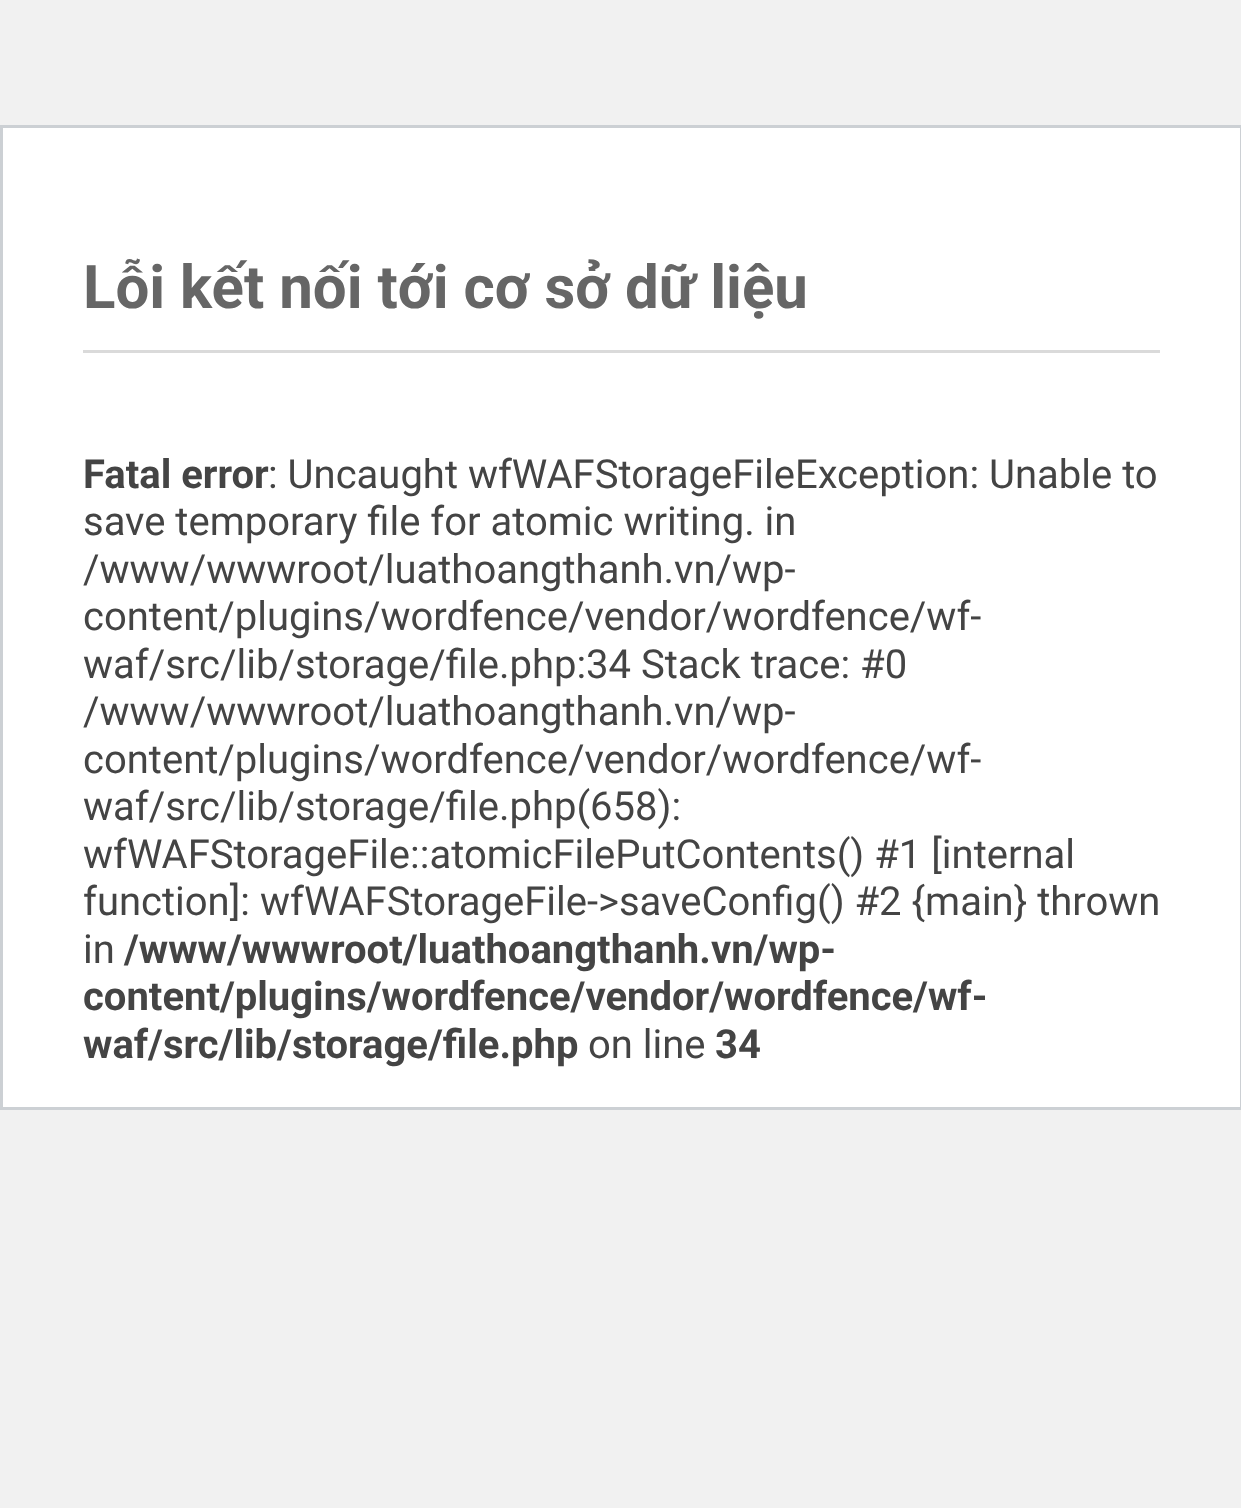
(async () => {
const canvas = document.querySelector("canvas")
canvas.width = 1241
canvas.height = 1508
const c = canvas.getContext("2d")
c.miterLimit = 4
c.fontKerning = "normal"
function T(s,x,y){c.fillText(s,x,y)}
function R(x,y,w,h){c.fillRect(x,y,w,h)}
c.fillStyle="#f1f1f1"
R(0,0,1241,1508)
c.fillStyle="#fff"
c.beginPath()
c.rect(1.5,126.5,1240,982)
c.fill()
c.strokeStyle="#ccd0d4"
c.lineWidth=3
c.stroke()
c.fillStyle="#dadada"
R(83,350,1077,3)
c.font="bold 60px Roboto"
c.fillStyle="#666"
T("Lỗi kết nối tới cơ sở dữ liệu",83,308)
c.font="bold 40px Roboto"
c.fillStyle="#444"
T("Fatal error",83,488)
c.font="40px Roboto"
T(": Uncaught wfWAFStorageFileException: Unable to",268,488)
T("save temporary file for atomic writing. in",83,535)
T("/www/wwwroot/luathoangthanh.vn/wp-",83,583)
T("content/plugins/wordfence/vendor/wordfence/wf-",83,630)
T("waf/src/lib/storage/file.php:34 Stack trace: #0",83,678)
T("/www/wwwroot/luathoangthanh.vn/wp-",83,725)
T("content/plugins/wordfence/vendor/wordfence/wf-",83,773)
T("waf/src/lib/storage/file.php(658):",83,820)
T("wfWAFStorageFile::atomicFilePutContents() #1 [internal",83,868)
T("function]: wfWAFStorageFile->saveConfig() #2 {main} thrown",83,915)
T("in",83,963)
c.font="bold 40px Roboto"
T("/www/wwwroot/luathoangthanh.vn/wp-",124,963)
T("content/plugins/wordfence/vendor/wordfence/wf-",83,1010)
T("waf/src/lib/storage/file.php",83,1058)
c.font="40px Roboto"
T("on line",588,1058)
c.font="bold 40px Roboto"
T("34",715,1058)
})()
